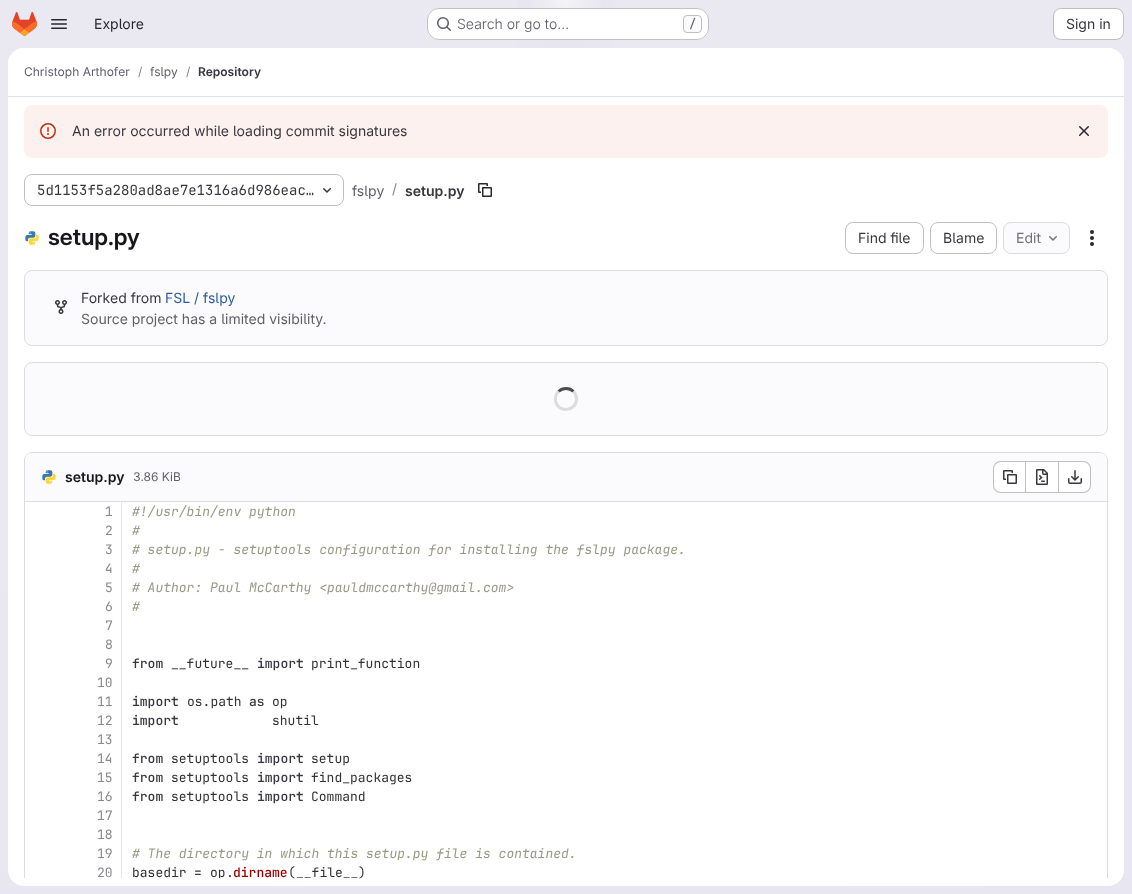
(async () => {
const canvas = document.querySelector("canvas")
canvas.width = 1132
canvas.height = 894
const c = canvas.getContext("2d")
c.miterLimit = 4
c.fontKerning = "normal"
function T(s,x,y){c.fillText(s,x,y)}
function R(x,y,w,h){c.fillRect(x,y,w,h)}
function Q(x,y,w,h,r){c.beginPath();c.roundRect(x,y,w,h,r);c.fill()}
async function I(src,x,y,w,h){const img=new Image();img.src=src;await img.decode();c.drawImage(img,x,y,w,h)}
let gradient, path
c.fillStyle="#fff"
R(0,0,1132,894)
gradient = c.createLinearGradient(660,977,472,-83)
gradient.addColorStop(0,"#e8e6f0")
gradient.addColorStop(.7,"#eae9f2")
c.fillStyle = gradient
R(0,0,1132,894)
gradient = c.createRadialGradient(566,0,0,566,0,566)
gradient.addColorStop(0,"#e4e2ed")
gradient.addColorStop(.12,"#e4e2ed00")
c.fillStyle = gradient
c.beginPath()
c.rect(517,0,98,48)
c.save()
c.clip()
c.scale(1,894 / 566)
c.fillRect(0,0,1132,566)
c.restore()
gradient = c.createRadialGradient(566,0,0,566,0,566)
gradient.addColorStop(0,"#e4e2ec")
gradient.addColorStop(.09,"#e4e2ec00")
c.fillStyle = gradient
c.beginPath()
c.rect(560,23,12,1)
c.save()
c.clip()
c.scale(1,894 / 566)
c.fillRect(0,0,1132,566)
c.restore()
gradient = c.createRadialGradient(566,0,0,566,0,1058)
gradient.addColorStop(0,"#ffffff99")
gradient.addColorStop(.04,"#ffffff00")
c.fillStyle = gradient
R(531,0,70,36)
await I("1.png",12,12,25,24)
await I("2.png",51,19,16,10)
c.font="14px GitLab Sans"
c.fillStyle="#28272d"
T("Explore",94,29)
c.fillStyle="#fff"
Q(427,8,282,32,12)
c.beginPath()
c.roundRect(427.5,8.5,281,31,11.5)
c.strokeStyle="#0505063d"
c.stroke()
await I("3.png",437,17,14,14)
c.font="300 14px GitLab Sans"
c.fillStyle="#626168"
T("Search or go to…",457,29)
c.fillStyle="#fbfafd"
c.beginPath()
c.roundRect(683.5,15.5,18,17,3.5)
c.fill()
c.strokeStyle="#bfbfc3"
c.stroke()
c.font="500 12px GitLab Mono"
c.fillStyle="#626168"
T("/",689,28)
c.fillStyle="#fff"
c.beginPath()
c.roundRect(1053.5,8.5,70,31,7.5)
c.fill()
c.stroke()
c.font="14px GitLab Sans"
c.fillStyle="#3a383f"
T("Sign in",1066,29)
c.fillStyle="#fff"
Q(8,48,1116,838,16)
c.beginPath()
c.roundRect(8,48,1116,49,[16,16,0,0])
c.fill()
c.fillStyle="#e1dfec"
R(8,96,1116,1)
c.font="12px GitLab Sans"
c.fillStyle="#626168"
T("Christoph Arthofer",24,76)
c.fillStyle="#89888d"
T("/",138,76)
c.fillStyle="#626168"
T("fslpy",150,76)
c.fillStyle="#89888d"
T("/",186,76)
c.font="600 12px GitLab Sans"
c.fillStyle="#3a383f"
T("Repository",198,76)
c.fillStyle="#fcf1ef"
Q(24,105,1084,53,8)
await I("4.png",40,123,16,16)
c.font="14px GitLab Sans"
c.fillStyle="#3a383f"
T("An error occurred while loading commit signatures",72,136)
await I("5.png",1079,126,10,10)
c.beginPath()
c.roundRect(24.5,174.5,319,31,7.5)
c.stroke()
c.font="14px GitLab Mono"
T("5d1153f5a280ad8ae7e1316a6d986eac…",37,195)
await I("6.png",323,188,8,5)
c.font="14px GitLab Sans"
c.fillStyle="#626168"
T("fslpy",352,196)
c.fillStyle="#89888d"
T("/",392,194)
c.font="600 14px GitLab Sans"
c.fillStyle="#3a383f"
T("setup.py",405,196)
await I("7.png",478,183,14,14)
await I("8.png",25,231,14,14)
c.font="600 23px 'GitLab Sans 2'"
c.fillStyle="#18171d"
T("setup.py",48,245)
c.beginPath()
c.roundRect(845.5,222.5,78,31,7.5)
c.stroke()
c.font="14px GitLab Sans"
c.fillStyle="#3a383f"
T("Find file",858,243)
c.beginPath()
c.roundRect(930.5,222.5,66,31,7.5)
c.stroke()
T("Blame",943,243)
c.fillStyle="#fbfafd"
c.beginPath()
c.roundRect(1003.5,222.5,66,31,7.5)
c.fill()
c.strokeStyle="#dcdcde"
c.stroke()
c.fillStyle="#737278"
T("Edit",1016,243)
await I("9.png",1049,236,8,5)
await I("10.png",1090,230,4,16)
c.fillStyle="#fbfafd"
c.beginPath()
c.roundRect(24.5,270.5,1083,75,7.5)
c.fill()
c.stroke()
await I("11.png",55,300,12,14)
c.fillStyle="#3a383f"
T("Forked from",81,303)
c.fillStyle="#2f5ca0"
T("FSL / fslpy",165,303)
c.fillStyle="#626168"
T("Source project has a limited visibility.",81,324)
c.fillStyle="#fbfafd"
c.beginPath()
c.roundRect(24.5,362.5,1083,73,7.5)
c.fill()
c.stroke()
path = new Path2D("M558.5 391.5c4-4 11-4 15 0")
c.strokeStyle="#4c4b51"
c.lineWidth=3
c.stroke(path)
path = new Path2D("M573.5 391.5c2 2 3 4.5 3 7.5c0 12.5-18.5 14.5-21 2c-.5-3.5 .5-7 3-9.5")
c.strokeStyle="#dcdcde"
c.stroke(path)
c.save()
c.beginPath()
c.rect(8,97,1116,781)
c.clip()
c.fillStyle="#dcdcde"
path = new Path2D("M32 452c-4 0-8 4-8 8v426h1v-426c0-4 3-7 7-7h1068c4 0 7 3 7 7v426h1v-426c0-4-4-8-8-8z")
c.fill(path)
c.restore()
c.beginPath()
c.roundRect(25,453,1082,49,[7,7,0,0])
c.fill()
c.fillStyle="#dcdcde"
R(25,501,1082,1)
await I("12.png",42,470,14,14)
c.font="600 14px GitLab Sans"
c.fillStyle="#18171d"
T("setup.py",65,482)
c.font="12px GitLab Sans"
c.fillStyle="#626168"
T("3.86 KiB",133,481)
c.fillStyle="#fff"
c.beginPath()
c.roundRect(994,462,31,30,[7,0,0,7])
c.fill()
c.fillStyle="#bfbfc3"
path = new Path2D("M1001 461h24v32h-24c-4.5 0-8-3.5-8-8v-16c0-4.5 3.5-8 8-8zm0 1h24v30h-24c-4 0-7-3-7-7v-16c0-4 3-7 7-7z")
c.fill(path,"evenodd")
await I("13.png",1003,470,14,14)
c.fillStyle="#fff"
R(1026,462,32,30)
c.fillStyle="#bfbfc3"
R(1026,461,32,1)
R(1026,492,32,1)
R(1025,461,1,32)
await I("14.png",1036,469,12,16)
c.fillStyle="#fff"
c.beginPath()
c.roundRect(1059,462,31,30,[0,7,7,0])
c.fill()
c.fillStyle="#bfbfc3"
path = new Path2D("M1059 461h24c4.5 0 8 3.5 8 8v16c0 4.5-3.5 8-8 8h-24zm0 1h24c4 0 7 3 7 7v16c0 4-3 7-7 7h-24z")
c.fill(path,"evenodd")
R(1058,461,1,32)
await I("15.png",1068,470,14,14)
c.font="13px GitLab Mono"
c.fillStyle="#89888d"
T("1",105,516)
T("2",105,535)
T("3",105,554)
T("4",105,573)
T("5",105,592)
T("6",105,611)
T("7",105,630)
T("8",105,649)
T("9",105,668)
T("10",97,687)
T("11",97,706)
T("12",97,725)
T("13",97,744)
T("14",97,763)
T("15",97,782)
T("16",97,801)
T("17",97,820)
T("18",97,839)
T("19",97,858)
T("20",97,877)
c.fillStyle="#e6e6e6"
R(121,502,1,376)
c.font="italic 13px GitLab Mono"
c.fillStyle="#998"
T("#!/usr/bin/env python",132,516)
T("#",132,535)
T("# setup.py - setuptools configuration for installing the fslpy package.",132,554)
T("#",132,573)
T("# Author: Paul McCarthy <pauldmccarthy@gmail.com>",132,592)
T("#",132,611)
c.font="600 13px GitLab Mono"
c.fillStyle="#3a383f"
T("from",132,668)
c.font="13px GitLab Mono"
c.fillStyle="#333"
T("__future__",171,668)
c.font="600 13px GitLab Mono"
c.fillStyle="#3a383f"
T("import",257,668)
c.font="13px GitLab Mono"
c.fillStyle="#333"
T("print_function",311,668)
c.font="600 13px GitLab Mono"
c.fillStyle="#3a383f"
T("import",132,706)
c.font="13px GitLab Mono"
c.fillStyle="#333"
T("os.path",187,706)
c.font="600 13px GitLab Mono"
c.fillStyle="#3a383f"
T("as",249,706)
c.font="13px GitLab Mono"
c.fillStyle="#333"
T("op",272,706)
c.font="600 13px GitLab Mono"
c.fillStyle="#3a383f"
T("import",132,725)
c.font="13px GitLab Mono"
c.fillStyle="#333"
T("shutil",272,725)
c.font="600 13px GitLab Mono"
c.fillStyle="#3a383f"
T("from",132,763)
c.font="13px GitLab Mono"
c.fillStyle="#333"
T("setuptools",171,763)
c.font="600 13px GitLab Mono"
c.fillStyle="#3a383f"
T("import",257,763)
c.font="13px GitLab Mono"
c.fillStyle="#333"
T("setup",311,763)
c.font="600 13px GitLab Mono"
c.fillStyle="#3a383f"
T("from",132,782)
c.font="13px GitLab Mono"
c.fillStyle="#333"
T("setuptools",171,782)
c.font="600 13px GitLab Mono"
c.fillStyle="#3a383f"
T("import",257,782)
c.font="13px GitLab Mono"
c.fillStyle="#333"
T("find_packages",311,782)
c.font="600 13px GitLab Mono"
c.fillStyle="#3a383f"
T("from",132,801)
c.font="13px GitLab Mono"
c.fillStyle="#333"
T("setuptools",171,801)
c.font="600 13px GitLab Mono"
c.fillStyle="#3a383f"
T("import",257,801)
c.font="13px GitLab Mono"
c.fillStyle="#333"
T("Command",311,801)
c.font="italic 13px GitLab Mono"
c.fillStyle="#998"
T("# The directory in which this setup.py file is contained.",132,858)
c.font="13px GitLab Mono"
c.fillStyle="#333"
T("basedir",132,877)
c.font="600 13px GitLab Mono"
c.fillStyle="#3a383f"
T("=",194,877)
c.save()
c.beginPath()
c.rect(121,502,986,376)
c.clip()
c.font="13px GitLab Mono"
c.fillStyle="#333"
T("op",210,877)
c.restore()
c.fillStyle="#900"
T("dirname",233,877)
c.font="13px GitLab Mono"
c.fillStyle="#3a383f"
T("(",288,877)
c.save()
c.beginPath()
c.rect(121,502,986,376)
c.clip()
c.fillStyle="#333"
T("__file__",296,877)
c.restore()
T(")",358,877)
T(".",226,877)
})()
